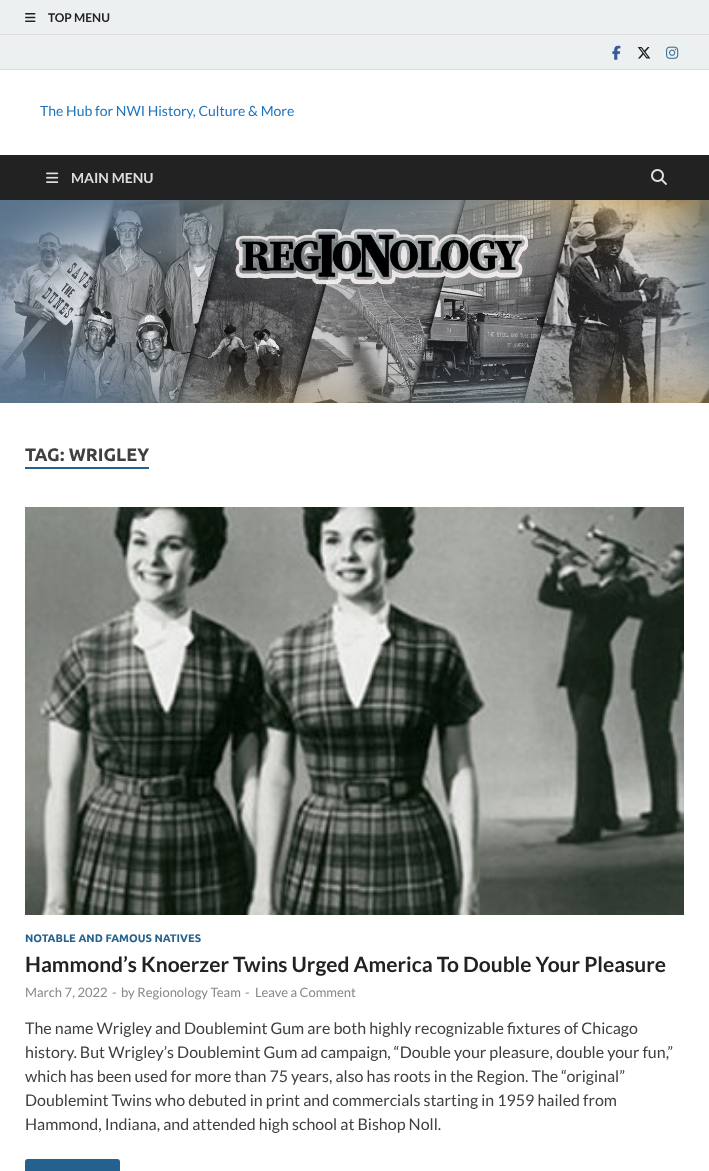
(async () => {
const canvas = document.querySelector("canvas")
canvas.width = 709
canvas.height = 1171
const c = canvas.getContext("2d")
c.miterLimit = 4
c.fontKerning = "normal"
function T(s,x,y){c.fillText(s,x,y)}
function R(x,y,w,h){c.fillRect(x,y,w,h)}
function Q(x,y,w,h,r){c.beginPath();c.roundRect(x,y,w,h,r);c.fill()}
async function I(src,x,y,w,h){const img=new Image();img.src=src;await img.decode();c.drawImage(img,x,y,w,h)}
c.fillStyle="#fff"
R(0,0,709,1171)
c.fillStyle="#ecf0f1"
R(0,0,709,34)
c.fillStyle="#ddd"
R(0,34,709,1)
await I("1.png",25,13,11,9)
c.font="bold 12px Lato"
c.fillStyle="#222"
T("TOP MENU",48,22)
c.fillStyle="#ecf0f1"
R(0,35,709,34)
c.fillStyle="#ddd"
R(0,69,709,1)
await I("2.png",612,45,9,15)
await I("3.png",637,47,14,12)
await I("4.png",666,46,13,13)
c.font="14px Lato"
c.fillStyle="#1e73be"
T("The Hub for NWI History, Culture & More",40,116)
c.fillStyle="#222"
R(0,155,709,45)
await I("5.png",46,172,13,11)
c.font="bold 14px Lato"
c.fillStyle="#ddd"
T("MAIN MENU",71,183)
await I("6.png",651,169,16,16)
await I("7.png",0,200,709,203)
c.font="bold 18px Ubuntu"
c.fillStyle="#404040"
T("TAG: WRIGLEY",25,461)
c.fillStyle="#25618e"
R(25,467,124,2)
await I("8.png",25,507,659,408)
c.font="bold 11px Ubuntu"
T("NOTABLE AND FAMOUS NATIVES",25,942)
c.font="bold 21px Lato"
c.fillStyle="#222"
T("Hammond’s Knoerzer Twins Urged America To Double Your Pleasure",25,972)
c.font="13px Lato"
c.fillStyle="#888"
T("March 7, 2022",25,997)
T("-",112,997)
T("by Regionology Team",121,997)
T("-",245,997)
T("Leave a Comment",255,997)
c.font="16px Lato"
c.fillStyle="#404040"
T("The name Wrigley and Doublemint Gum are both highly recognizable fixtures of Chicago",25,1034)
T("history. But Wrigley’s Doublemint Gum ad campaign, “Double your pleasure, double your fun,”",25,1058)
T("which has been used for more than 75 years, also has roots in the Region. The “original”",25,1082)
T("Doublemint Twins who debuted in print and commercials starting in 1959 hailed from",25,1106)
T("Hammond, Indiana, and attended high school at Bishop Noll.",25,1130)
c.fillStyle="#25618e"
Q(25,1159,95,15,3)
})()
